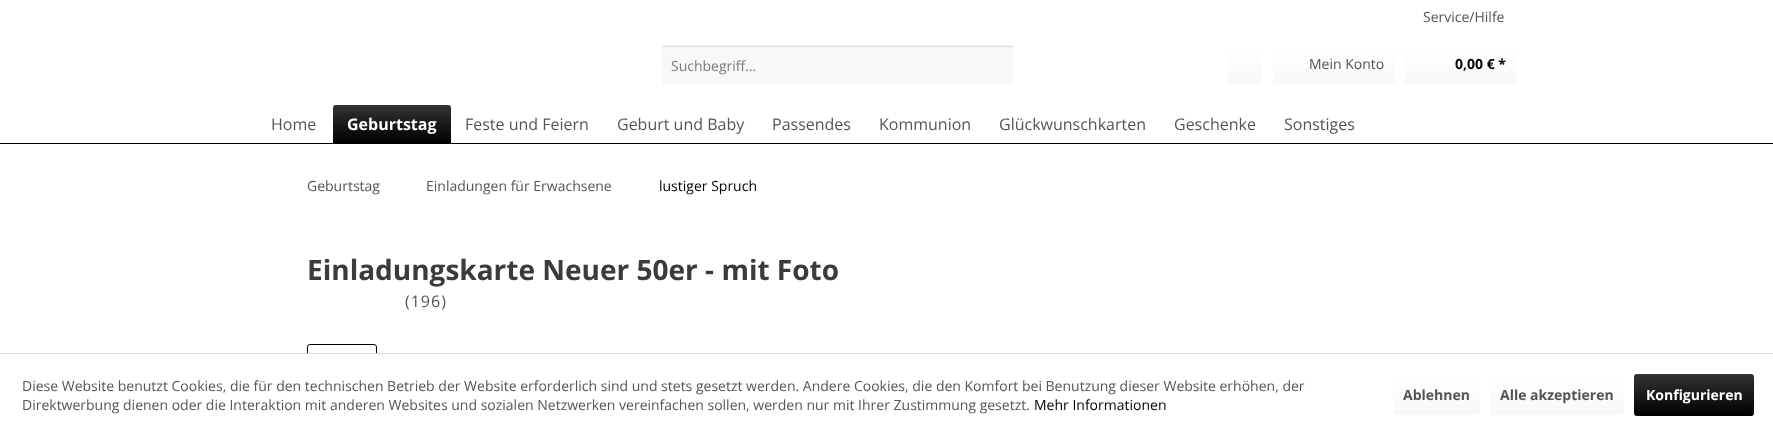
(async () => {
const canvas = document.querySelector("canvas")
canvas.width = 1773
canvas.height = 436
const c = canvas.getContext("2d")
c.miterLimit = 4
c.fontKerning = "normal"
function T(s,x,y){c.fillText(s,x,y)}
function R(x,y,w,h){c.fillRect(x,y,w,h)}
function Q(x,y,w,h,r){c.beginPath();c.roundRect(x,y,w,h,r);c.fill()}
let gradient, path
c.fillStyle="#fff"
R(0,0,1773,436)
c.font="14px Open Sans"
c.fillStyle="#555"
T("Service/Hilfe",1423,22)
c.fillStyle="#f8f8fa"
Q(661,45,353,40,3)
c.fillStyle="#dadae5"
path = new Path2D("M664 47h347c1 0 2 1 2 2c0-1 0-3-2-3h-347c-2 0-2 2-2 3c0-1 1-2 2-2z")
c.fill(path)
path = new Path2D("M662 46l2-.5h347l2 .5")
c.strokeStyle="#f2f2f2"
c.stroke(path)
path = new Path2D("M1013 46c1.5 2 .5 21 .5 24.5v6c0 1.5 1.5 8-2.5 8h-347c-4 0-2.5-6.5-2.5-8v-6c0-3.5-1-22.5 .5-24.5")
c.strokeStyle="#fff"
c.stroke(path)
c.fillStyle="#7b7b7b"
T("Suchbegriff...",671,71)
gradient = c.createLinearGradient(1245,46,1245,84)
gradient.addColorStop(0,"#fff")
gradient.addColorStop(1,"#f8f8fa")
c.fillStyle = gradient
Q(1228,46,34,38,2)
gradient = c.createLinearGradient(1334,46,1334,84)
gradient.addColorStop(0,"#fff")
gradient.addColorStop(1,"#f8f8fa")
c.fillStyle = gradient
Q(1273,46,121,38,2)
c.fillStyle="#555"
T("Mein Konto",1309,69)
gradient = c.createLinearGradient(1461,46,1461,84)
gradient.addColorStop(0,"#fff")
gradient.addColorStop(1,"#f8f8fa")
c.fillStyle = gradient
Q(1405,46,111,38,2)
c.font="bold 14px Open Sans"
c.fillStyle="#000"
T("0,00 € *",1455,69)
R(0,143,1773,1)
c.font="16px Open Sans"
c.fillStyle="#555"
T("Home",271,130)
gradient = c.createLinearGradient(392,105,392,143)
gradient.addColorStop(0,"#333")
gradient.addColorStop(1,"#000")
c.fillStyle = gradient
c.beginPath()
c.roundRect(333,105,118,38,[3,3,0,0])
c.fill()
c.font="bold 16px Open Sans"
c.fillStyle="#fff"
T("Geburtstag",347,130)
c.font="16px Open Sans"
c.fillStyle="#555"
T("Feste und Feiern",465,130)
T("Geburt und Baby",617,130)
T("Passendes",772,130)
T("Kommunion",879,130)
T("Glückwunschkarten",999,130)
T("Geschenke",1174,130)
T("Sonstiges",1284,130)
c.font="14px Open Sans"
T("Geburtstag",307,191)
T("Einladungen für Erwachsene",426,191)
c.fillStyle="#000"
T("lustiger Spruch",659,191)
c.font="bold 28px Open Sans"
c.fillStyle="#3b3b3b"
T("Einladungskarte Neuer 50er - mit Foto",307,280)
c.letterSpacing="1px"
c.font="16px Open Sans"
c.fillStyle="#555"
T("(196)",405,307)
c.beginPath()
c.roundRect(307.5,344.5,69,69,2.5)
c.strokeStyle="#000"
c.stroke()
c.fillStyle="#fff"
R(307,354,70,60)
c.fillStyle="#dadae5"
R(0,353,1773,1)
c.letterSpacing="0px"
c.font="14px Open Sans"
c.fillStyle="#555"
T("Diese Website benutzt Cookies, die für den technischen Betrieb der Website erforderlich sind und stets gesetzt werden. Andere Cookies, die den Komfort bei Benutzung dieser Website erhöhen, der",22,391)
T("Direktwerbung dienen oder die Interaktion mit anderen Websites und sozialen Netzwerken vereinfachen sollen, werden nur mit Ihrer Zustimmung gesetzt.",22,410)
c.fillStyle="#000"
T("Mehr Informationen",1034,410)
gradient = c.createLinearGradient(1437,375,1437,415)
gradient.addColorStop(0,"#fff")
gradient.addColorStop(1,"#f8f8fa")
c.fillStyle = gradient
Q(1393,375,87,40,2)
c.font="bold 14px Open Sans"
c.fillStyle="#555"
T("Ablehnen",1403,400)
gradient = c.createLinearGradient(1557,375,1557,415)
gradient.addColorStop(0,"#fff")
gradient.addColorStop(1,"#f8f8fa")
c.fillStyle = gradient
Q(1490,375,134,40,2)
c.fillStyle="#555"
T("Alle akzeptieren",1500,400)
gradient = c.createLinearGradient(1694,374,1694,416)
gradient.addColorStop(0,"#333")
gradient.addColorStop(1,"#000")
c.fillStyle = gradient
Q(1634,374,120,42,3)
c.fillStyle="#fff"
T("Konfigurieren",1646,400)
})()
